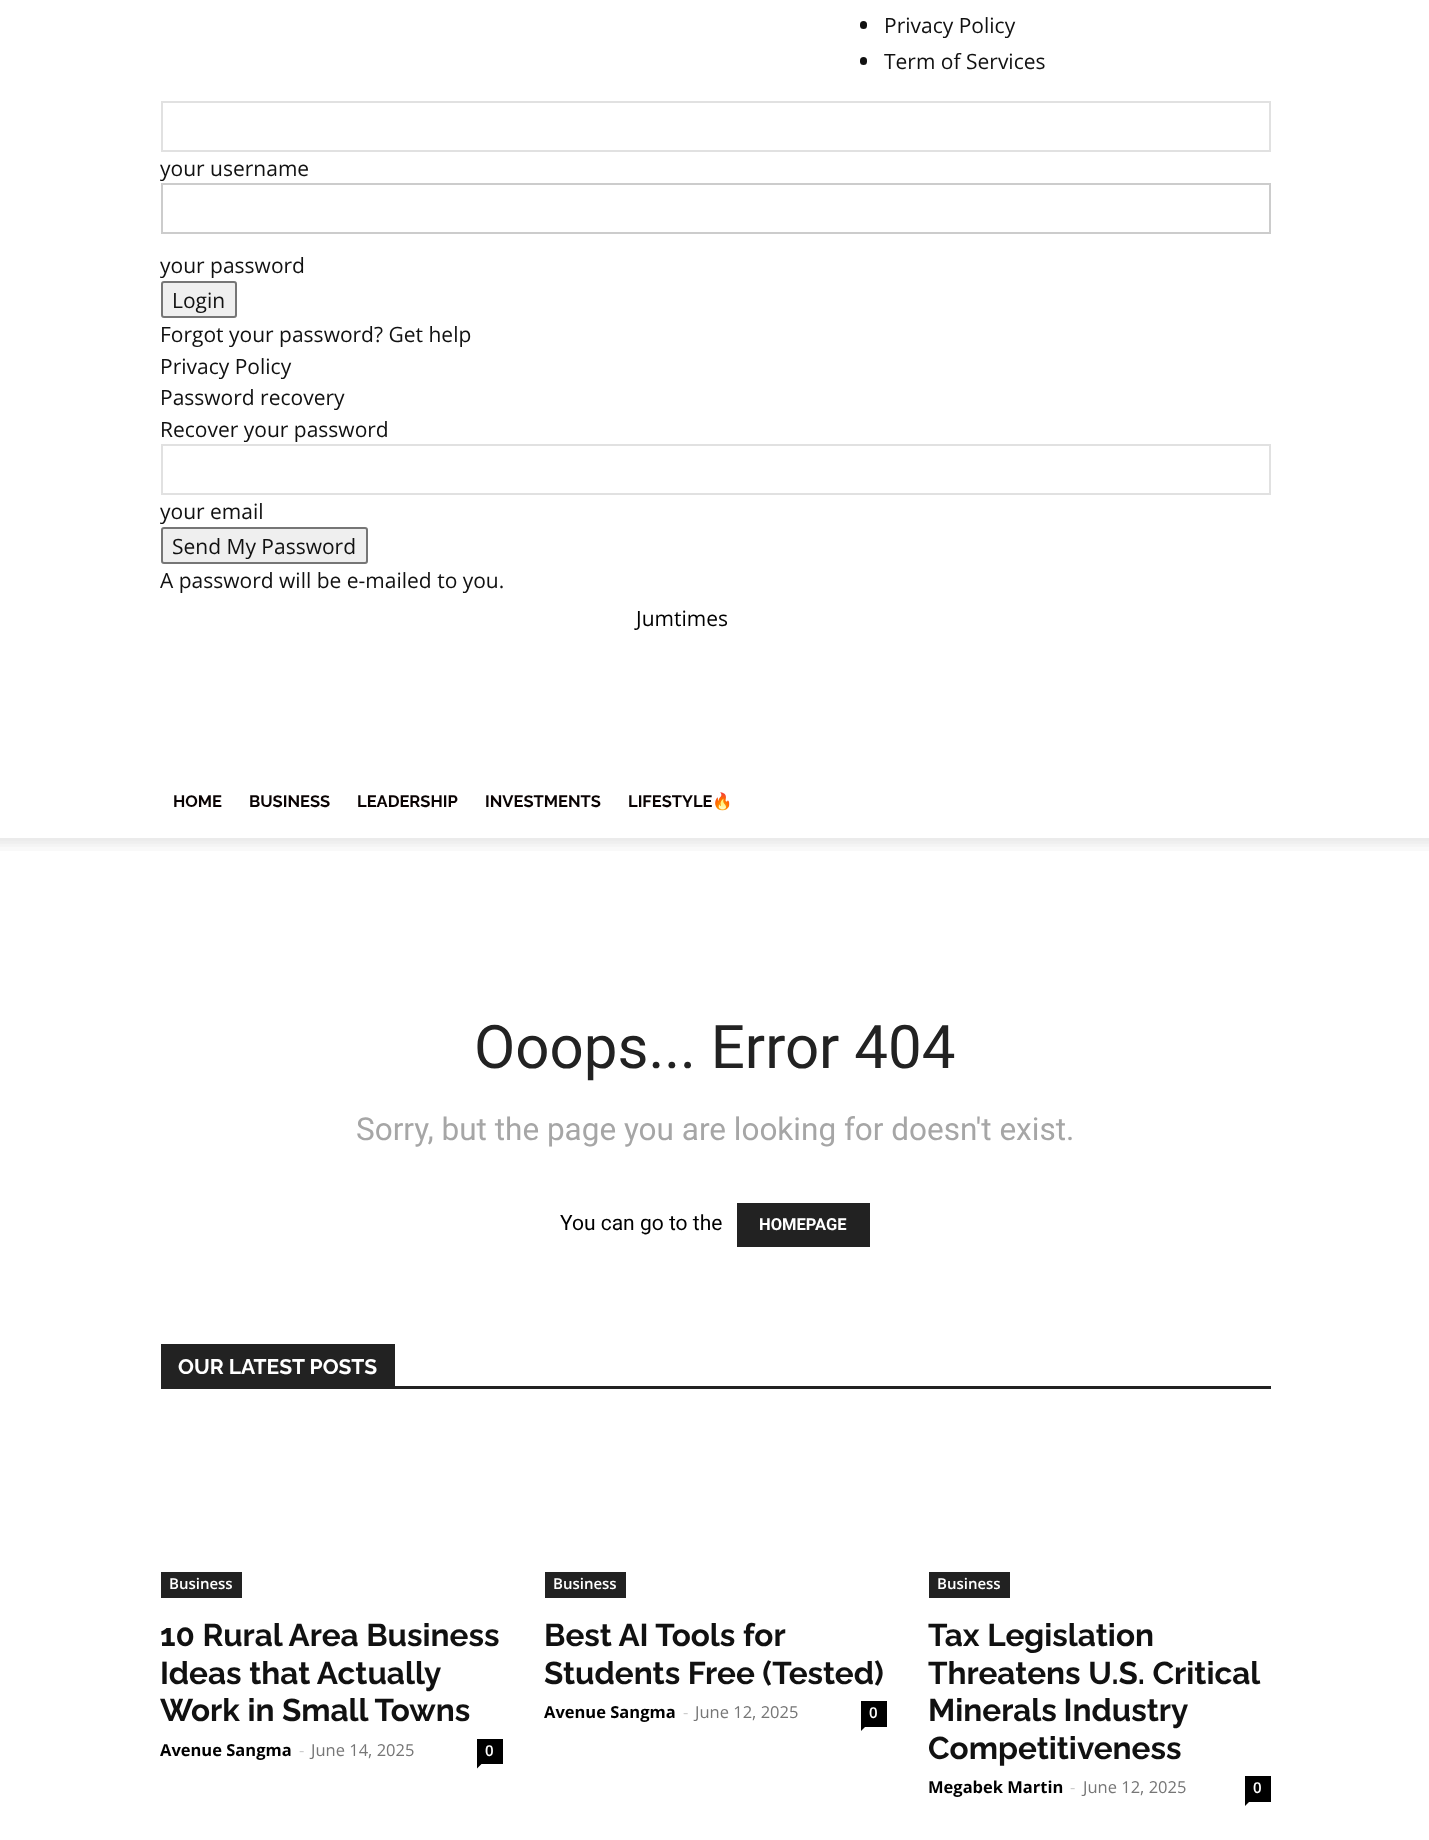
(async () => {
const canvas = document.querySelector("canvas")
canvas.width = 1429
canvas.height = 1840
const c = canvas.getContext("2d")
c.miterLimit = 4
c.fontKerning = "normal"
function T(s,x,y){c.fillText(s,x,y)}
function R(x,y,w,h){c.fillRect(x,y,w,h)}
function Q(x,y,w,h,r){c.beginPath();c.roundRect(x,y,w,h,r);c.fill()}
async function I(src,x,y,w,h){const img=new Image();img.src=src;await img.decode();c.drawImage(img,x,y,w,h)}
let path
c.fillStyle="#fff"
R(0,0,1429,1840)
c.fillStyle="#111"
Q(860,21,7,8,3.5)
c.font="21px Open Sans"
T("Privacy Policy",884,33)
Q(860,57,7,8,3.5)
T("Term of Services",884,69)
c.strokeStyle="#e1e1e1"
c.lineWidth=2
c.strokeRect(162,102,1108,49)
T("your username",160,176)
c.strokeStyle="#ccc"
c.strokeRect(162,184,1108,49)
T("your password",160,273)
c.fillStyle="#efefef"
c.beginPath()
c.roundRect(162,282,74,35,2)
c.fill()
c.strokeStyle="#767676"
c.stroke()
c.fillStyle="#111"
T("Login",172,308)
T("Forgot your password? Get help",160,342)
T("Privacy Policy",160,374)
T("Password recovery",160,405)
T("Recover your password",160,437)
c.strokeStyle="#e1e1e1"
c.strokeRect(162,445,1108,49)
T("your email",160,519)
c.fillStyle="#efefef"
c.beginPath()
c.roundRect(162,528,205,35,2)
c.fill()
c.strokeStyle="#767676"
c.stroke()
c.fillStyle="#111"
T("Send My Password",172,554)
T("A password will be e-mailed to you.",160,588)
c.fillStyle="#000"
T("Jumtimes",636,626)
c.font="bold 16.5px Raleway"
c.fillStyle="#0a0303"
T("HOME",173,807)
T("BUSINESS",249,807)
T("LEADERSHIP",357,807)
T("INVESTMENTS",485,807)
T("LIFESTYLE",628,807)
c.font="bold 16.5px Noto Color Emoji"
T("🔥",712,807)
await I("1.png",0,838,1429,13)
c.font="60px Roboto"
c.fillStyle="#222"
T("Ooops... Error 404",474,1068)
c.font="31.5px Roboto"
c.fillStyle="#a6a6a6"
T("Sorry, but the page you are looking for doesn't exist.",356,1140)
c.font="21px Roboto"
c.fillStyle="#000"
T("You can go to the",560,1230)
c.fillStyle="#222"
R(737,1203,133,44)
c.font="bold 16.5px Roboto"
c.fillStyle="#fff"
T("HOMEPAGE",759,1230)
c.fillStyle="#222"
R(161,1386,1110,3)
R(161,1344,234,42)
c.font="bold 21px Raleway"
c.fillStyle="#fff"
T("OUR LATEST POSTS",178,1374)
c.fillStyle="#222"
R(161,1572,81,26)
c.font="600 15px Open Sans"
c.fillStyle="#fff"
T("Business",169,1589)
c.font="bold 31.5px Raleway"
c.fillStyle="#111"
T("10 Rural Area Business",160,1646)
T("Ideas that Actually",160,1684)
T("Work in Small Towns",160,1721)
c.font="bold 16.5px Open Sans"
c.fillStyle="#000"
T("Avenue Sangma",160,1756)
c.font="16.5px Open Sans"
c.fillStyle="#ccc"
T("-",299,1756)
c.fillStyle="#767676"
T("June 14, 2025",311,1756)
c.fillStyle="#000"
R(477,1739,26,25)
c.font="600 15px Open Sans"
c.fillStyle="#fff"
T("0",485,1756)
c.fillStyle="#000"
path = new Path2D("M477 1764h4.5l-4.5 4.5z")
c.fill(path)
c.fillStyle="#222"
R(545,1572,81,26)
c.fillStyle="#fff"
T("Business",553,1589)
c.font="bold 31.5px Raleway"
c.fillStyle="#111"
T("Best AI Tools for",544,1646)
T("Students Free (Tested)",544,1684)
c.font="bold 16.5px Open Sans"
c.fillStyle="#000"
T("Avenue Sangma",544,1718)
c.font="16.5px Open Sans"
c.fillStyle="#ccc"
T("-",683,1718)
c.fillStyle="#767676"
T("June 12, 2025",695,1718)
c.fillStyle="#000"
R(861,1701,26,26)
c.font="600 15px Open Sans"
c.fillStyle="#fff"
T("0",869,1718)
c.fillStyle="#000"
path = new Path2D("M861 1726.5h4.5l-4.5 4.5z")
c.fill(path)
c.fillStyle="#222"
R(929,1572,81,26)
c.fillStyle="#fff"
T("Business",937,1589)
c.font="bold 31.5px Raleway"
c.fillStyle="#111"
T("Tax Legislation",928,1646)
T("Threatens U.S. Critical",928,1684)
c.wordSpacing="-1px"
T("Minerals Industry",928,1721)
c.wordSpacing="0px"
T("Competitiveness",928,1759)
c.font="bold 16.5px Open Sans"
c.fillStyle="#000"
T("Megabek Martin",928,1793)
c.font="16.5px Open Sans"
c.fillStyle="#ccc"
T("-",1070,1793)
c.fillStyle="#767676"
T("June 12, 2025",1083,1793)
c.fillStyle="#000"
R(1245,1776,26,26)
c.font="600 15px Open Sans"
c.fillStyle="#fff"
T("0",1253,1793)
c.fillStyle="#000"
path = new Path2D("M1245 1801.5h4.5l-4.5 4.5z")
c.fill(path)
})()
